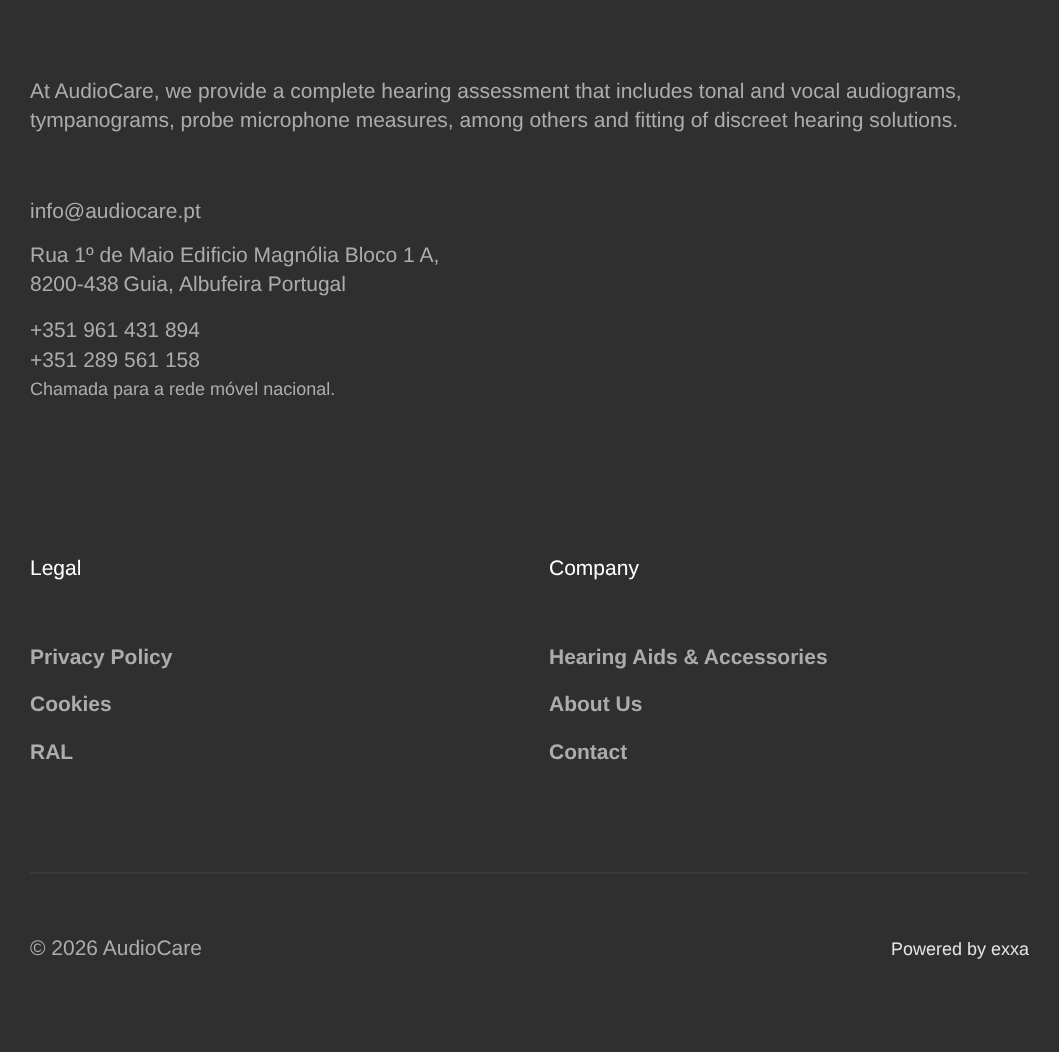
(async () => {
const canvas = document.querySelector("canvas")
canvas.width = 1059
canvas.height = 1052
const c = canvas.getContext("2d")
c.miterLimit = 4
c.fontKerning = "normal"
function T(s,x,y){c.fillText(s,x,y)}
function R(x,y,w,h){c.fillRect(x,y,w,h)}
c.fillStyle="#2f2f2f"
R(0,0,1059,1052)
c.font="21px Liberation Sans"
c.fillStyle="#acacac"
T("At AudioCare, we provide a complete hearing assessment that includes tonal and vocal audiograms,",30,98)
T("tympanograms, probe microphone measures, among others and fitting of discreet hearing solutions.",30,127)
T("info@audiocare.pt",30,218)
T("Rua 1º de Maio Edificio Magnólia Bloco 1 A,",30,262)
c.wordSpacing="-1px"
T("8200-438 Guia,",30,291)
c.wordSpacing="0px"
T("Albufeira Portugal",179,291)
T("+351 961 431 894",30,337)
T("+351 289 561 158",30,367)
c.font="18px Liberation Sans"
T("Chamada para a rede móvel nacional.",30,395)
c.font="21px Liberation Sans"
c.fillStyle="#fff"
T("Legal",30,575)
c.font="bold 21px Liberation Sans"
c.fillStyle="#acacac"
T("Privacy Policy",30,664)
T("Cookies",30,711)
T("RAL",30,759)
c.font="21px Liberation Sans"
c.fillStyle="#fff"
T("Company",549,575)
c.font="bold 21px Liberation Sans"
c.fillStyle="#acacac"
T("Hearing Aids & Accessories",549,664)
T("About Us",549,711)
T("Contact",549,759)
c.fillStyle="#393939"
R(30,872,999,2)
c.font="21px Liberation Sans"
c.fillStyle="#acacac"
T("© 2026 AudioCare",30,955)
c.font="18px Liberation Sans"
c.fillStyle="#e3e3e3"
T("Powered by exxa",891,955)
})()
